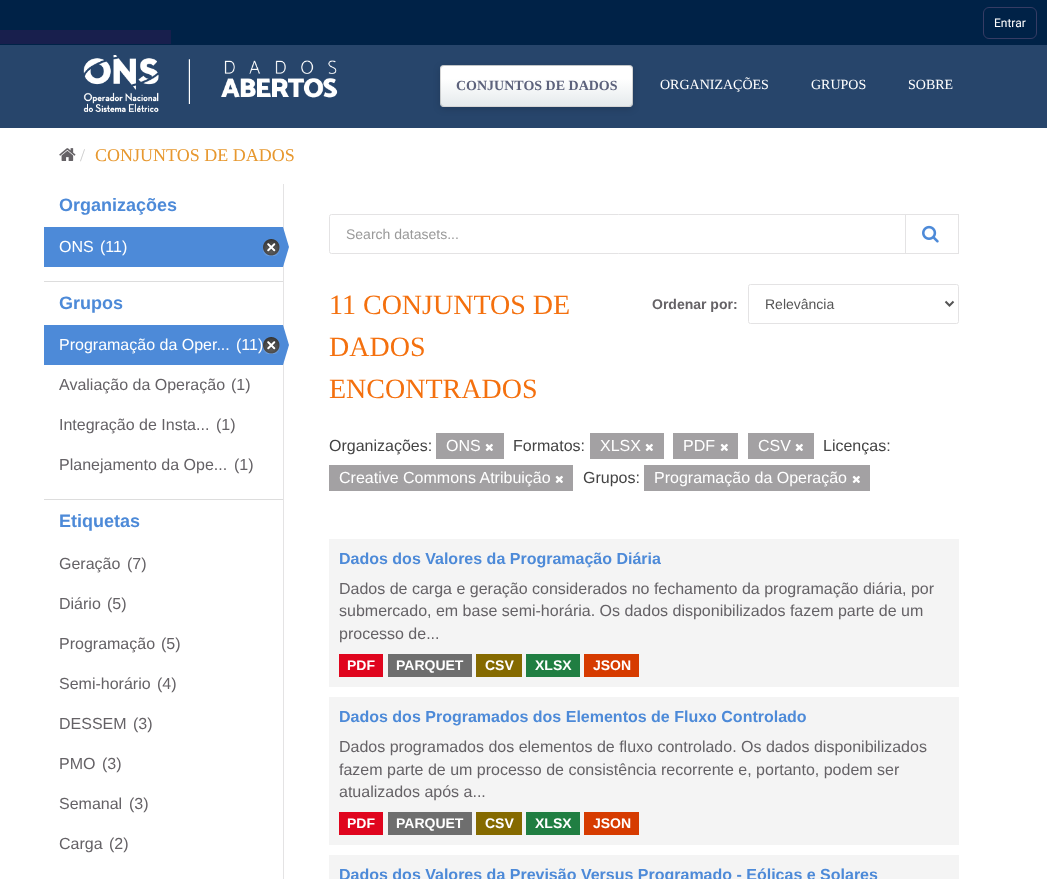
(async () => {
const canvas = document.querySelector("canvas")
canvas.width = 1047
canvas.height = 879
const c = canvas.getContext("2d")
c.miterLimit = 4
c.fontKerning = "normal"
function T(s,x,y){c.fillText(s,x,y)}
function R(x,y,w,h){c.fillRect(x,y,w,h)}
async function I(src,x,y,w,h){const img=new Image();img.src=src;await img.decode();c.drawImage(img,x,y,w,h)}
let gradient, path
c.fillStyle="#fff"
R(0,0,1047,879)
c.fillStyle="#002247"
R(0,0,1047,45)
c.beginPath()
c.roundRect(983.5,7.5,53,31,5.5)
c.strokeStyle="#363c64"
c.stroke()
c.font="12px Roboto"
c.fillStyle="#fff"
T("Entrar",994,27)
c.fillStyle="#181f4d"
R(0,30,171,14)
c.fillStyle="#27456b"
R(0,45,1047,83)
await I("1.png",83,55,255,58)
c.fillStyle="#00000024"
c.filter="blur(3.5px)"
c.beginPath()
c.roundRect(440,67,193,42,4)
c.fill()
c.filter="none"
c.save()
c.beginPath()
c.roundRect(440,65,193,42,4)
c.clip()
gradient = c.createLinearGradient(537,26,537,66)
gradient.addColorStop(.32,"#fff")
gradient.addColorStop(1,"#e5eaec")
c.fillStyle = gradient
R(440,65,193,1)
gradient = c.createLinearGradient(537,66,537,106)
gradient.addColorStop(.32,"#fff")
gradient.addColorStop(1,"#e5eaec")
c.fillStyle = gradient
R(440,66,193,40)
gradient = c.createLinearGradient(537,106,537,146)
gradient.addColorStop(.32,"#fff")
gradient.addColorStop(1,"#e5eaec")
c.fillStyle = gradient
R(440,106,193,1)
c.restore()
c.beginPath()
c.roundRect(440.5,65.5,192,41,3.5)
c.strokeStyle="#00000029"
c.stroke()
c.font="bold 14px Liberation Serif"
c.fillStyle="#5d627c"
T("CONJUNTOS DE DADOS",456,90)
c.font="14px Liberation Serif"
c.fillStyle="#fff"
T("ORGANIZAÇÕES",660,89)
T("GRUPOS",811,89)
T("SOBRE",908,89)
await I("2.png",59,148,17,13)
c.font="18px Liberation Serif"
c.fillStyle="#ccc"
T("/",80,161)
c.fillStyle="#e7982f"
T("CONJUNTOS DE DADOS",95,161)
c.font="bold 18px Liberation Sans"
c.fillStyle="#4d8ad8"
T("Organizações",59,211)
R(44,227,239,40)
c.font="16px Liberation Sans"
c.fillStyle="#fff"
T("ONS",59,252)
T("(11)",100,252)
await I("3.png",263,239,17,17)
c.fillStyle="#e4e3e4"
R(283,184,1,695)
c.fillStyle="#4d8ad8"
path = new Path2D("M283 267v-40l6 20z")
c.fill(path)
c.fillStyle="#ddd"
R(44,281,239,1)
c.font="bold 18px Liberation Sans"
c.fillStyle="#4d8ad8"
T("Grupos",59,309)
R(44,325,239,40)
c.font="16px Liberation Sans"
c.fillStyle="#fff"
T("Programação da Oper...",59,350)
T("(11)",236,350)
await I("3.png",263,337,17,17)
c.fillStyle="#4d8ad8"
path = new Path2D("M283 365v-40l6 20z")
c.fill(path)
c.fillStyle="#656266"
T("Avaliação da Operação",59,390)
T("(1)",231,390)
T("Integração de Insta...",59,430)
T("(1)",216,430)
T("Planejamento da Ope...",59,470)
T("(1)",234,470)
c.fillStyle="#ddd"
R(44,499,239,1)
c.font="bold 18px Liberation Sans"
c.fillStyle="#4d8ad8"
T("Etiquetas",59,527)
c.font="16px Liberation Sans"
c.fillStyle="#656266"
T("Geração",59,569)
T("(7)",127,569)
T("Diário",59,609)
T("(5)",107,609)
T("Programação",59,649)
T("(5)",161,649)
T("Semi-horário",59,689)
T("(4)",157,689)
T("DESSEM",59,729)
T("(3)",133,729)
T("PMO",59,769)
T("(3)",102,769)
T("Semanal",59,809)
T("(3)",129,809)
T("Carga",59,849)
T("(2)",109,849)
c.beginPath()
c.roundRect(329.5,214.5,576,39,[2,0,0,2])
c.strokeStyle="#e4e3e4"
c.stroke()
c.font="14px Liberation Sans"
c.fillStyle="#999"
T("Search datasets...",346,239)
c.strokeRect(905.5,214.5,53,39)
await I("4.png",922,225,17,18)
c.font="28px Liberation Serif"
c.fillStyle="#f4700e"
T("11 CONJUNTOS DE",329,314)
T("DADOS",329,356)
T("ENCONTRADOS",329,398)
c.font="bold 14px Liberation Sans"
c.fillStyle="#656266"
T("Ordenar por:",652,309)
c.beginPath()
c.roundRect(748.5,284.5,210,39,2)
c.stroke()
path = new Path2D("M945.5 301.5l4 4l4-4")
c.strokeStyle="#555"
c.lineWidth=2
c.stroke(path)
c.font="14px Liberation Sans"
c.fillStyle="#555"
T("Relevância",765,309)
c.font="16px Liberation Sans"
c.fillStyle="#444"
T("Organizações:",329,451)
c.fillStyle="#a3a1a3"
R(436,433,68,26)
c.fillStyle="#fff"
T("ONS",446,451)
await I("5.png",485,443,8,8)
c.fillStyle="#444"
T("Formatos:",513,451)
c.fillStyle="#a3a1a3"
R(590,433,74,26)
c.fillStyle="#fff"
T("XLSX",600,451)
await I("5.png",645,443,8,8)
c.fillStyle="#a3a1a3"
R(673,433,65,26)
c.fillStyle="#fff"
T("PDF",683,451)
await I("5.png",720,443,8,8)
c.fillStyle="#a3a1a3"
R(748,433,66,26)
c.fillStyle="#fff"
T("CSV",758,451)
await I("5.png",795,443,8,8)
c.fillStyle="#444"
T("Licenças:",823,451)
c.fillStyle="#a3a1a3"
R(329,465,244,26)
c.fillStyle="#fff"
T("Creative Commons Atribuição",339,483)
await I("5.png",555,475,8,8)
c.fillStyle="#444"
T("Grupos:",583,483)
c.fillStyle="#a3a1a3"
R(644,465,226,26)
c.fillStyle="#fff"
T("Programação da Operação",654,483)
await I("5.png",852,475,8,8)
c.fillStyle="#f4f4f4"
R(329,539,630,148)
c.font="bold 16px Liberation Sans"
c.fillStyle="#4d8ad8"
T("Dados dos Valores da Programação Diária",339,564)
c.font="16px Liberation Sans"
c.fillStyle="#656266"
T("Dados de carga e geração considerados no fechamento da programação diária, por",339,594)
T("submercado, em base semi-horária. Os dados disponibilizados fazem parte de um",339,616)
T("processo de...",339,639)
c.fillStyle="#e0051e"
R(339,654,44,23)
c.font="bold 14px Liberation Sans"
c.fillStyle="#fff"
T("PDF",347,670)
c.fillStyle="#6e6e6e"
R(388,654,84,23)
c.fillStyle="#fff"
T("PARQUET",396,670)
c.fillStyle="#856a00"
R(476,654,46,23)
c.fillStyle="#fff"
T("CSV",485,670)
c.fillStyle="#207e42"
R(526,654,54,23)
c.fillStyle="#fff"
T("XLSX",535,670)
c.fillStyle="#d63b00"
R(584,654,55,23)
c.fillStyle="#fff"
T("JSON",593,670)
c.fillStyle="#f4f4f4"
R(329,697,630,148)
c.font="bold 16px Liberation Sans"
c.fillStyle="#4d8ad8"
T("Dados dos Programados dos Elementos de Fluxo Controlado",339,722)
c.font="16px Liberation Sans"
c.fillStyle="#656266"
T("Dados programados dos elementos de fluxo controlado. Os dados disponibilizados",339,752)
T("fazem parte de um processo de consistência recorrente e, portanto, podem ser",339,775)
T("atualizados após a...",339,797)
c.fillStyle="#e0051e"
R(339,812,44,23)
c.font="bold 14px Liberation Sans"
c.fillStyle="#fff"
T("PDF",347,828)
c.fillStyle="#6e6e6e"
R(388,812,84,23)
c.fillStyle="#fff"
T("PARQUET",396,828)
c.fillStyle="#856a00"
R(476,812,46,23)
c.fillStyle="#fff"
T("CSV",485,828)
c.fillStyle="#207e42"
R(526,812,54,23)
c.fillStyle="#fff"
T("XLSX",535,828)
c.fillStyle="#d63b00"
R(584,812,55,23)
c.fillStyle="#fff"
T("JSON",593,828)
c.fillStyle="#f4f4f4"
R(329,855,630,24)
c.font="bold 16px Liberation Sans"
c.fillStyle="#4d8ad8"
T("Dados dos Valores da Previsão Versus Programado - Eólicas e Solares",339,880)
})()
